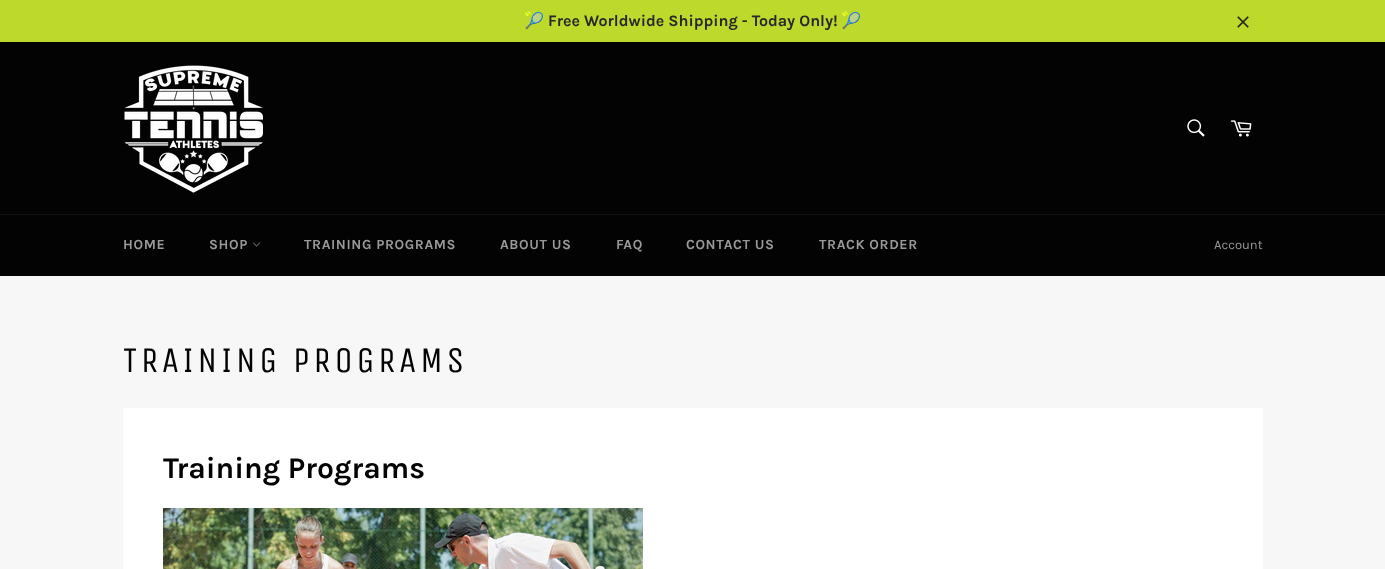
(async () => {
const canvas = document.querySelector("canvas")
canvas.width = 1385
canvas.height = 569
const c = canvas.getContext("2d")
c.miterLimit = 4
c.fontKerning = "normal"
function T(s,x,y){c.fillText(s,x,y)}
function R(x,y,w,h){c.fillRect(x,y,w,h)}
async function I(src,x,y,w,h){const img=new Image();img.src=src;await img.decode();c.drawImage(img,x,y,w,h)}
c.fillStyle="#f7f7f7"
R(0,0,1385,569)
c.fillStyle="#030303"
R(0,42,1385,234)
c.fillStyle="#bcd92c"
R(0,0,1385,42)
c.font="bold 16px Noto Color Emoji"
c.fillStyle="#282828"
T("🎾",524,26)
c.font="bold 16px Karla"
T("Free Worldwide Shipping - Today Only!",548,26)
c.font="bold 16px Noto Color Emoji"
T("🎾",841,26)
await I("1.png",1237,16,12,12)
await I("2.png",124,65,139,128)
await I("3.png",1187,119,18,18)
await I("4.png",1230,120,22,17)
c.fillStyle="#101010"
R(0,214,1385,1)
c.letterSpacing="0.6px"
c.font="bold 14px Karla"
c.fillStyle="#9a9a9a"
T("HOME",123,249)
T("SHOP",209,249)
await I("5.png",253,242,7,5)
T("TRAINING PROGRAMS",304,249)
T("ABOUT US",500,249)
T("FAQ",616,249)
T("CONTACT US",686,249)
T("TRACK ORDER",819,249)
c.letterSpacing="0px"
c.font="13px Karla"
T("Account",1214,249)
c.letterSpacing="3.6px"
c.font="36px Unica One"
c.fillStyle="#030303"
T("TRAINING PROGRAMS",123,372)
c.fillStyle="#fff"
R(123,408,1140,161)
c.letterSpacing="0px"
c.font="bold 30px Karla"
c.fillStyle="#030303"
T("Training Programs",163,478)
await I("6.png",163,508,480,61)
})()
